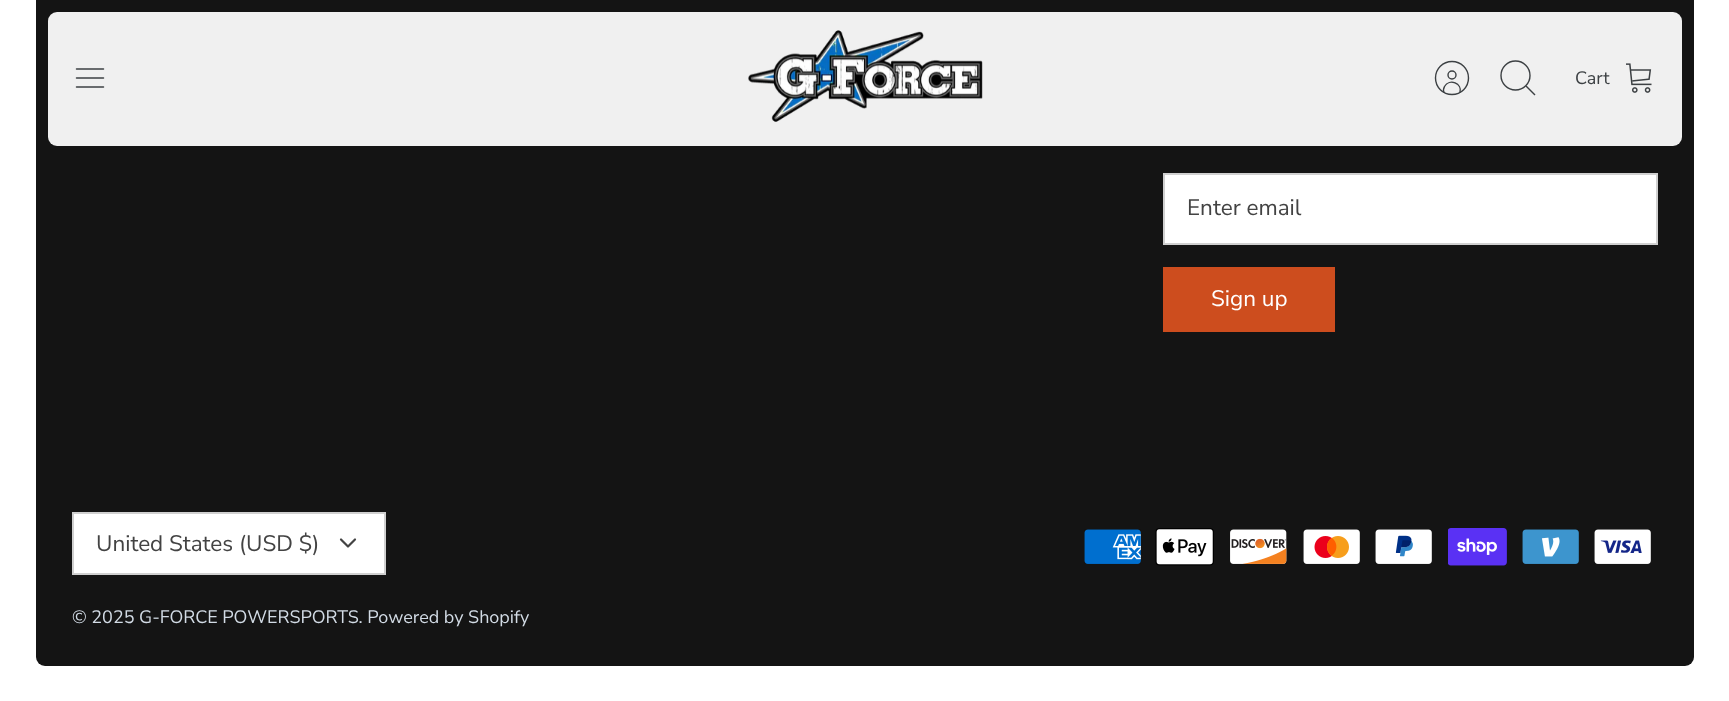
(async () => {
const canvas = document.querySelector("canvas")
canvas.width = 1729
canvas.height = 701
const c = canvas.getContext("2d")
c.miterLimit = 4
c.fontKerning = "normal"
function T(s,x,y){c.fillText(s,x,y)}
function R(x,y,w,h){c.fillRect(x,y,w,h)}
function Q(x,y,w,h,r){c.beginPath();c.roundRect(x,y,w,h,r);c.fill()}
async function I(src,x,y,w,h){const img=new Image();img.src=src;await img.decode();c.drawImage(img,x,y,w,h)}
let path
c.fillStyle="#fff"
R(0,0,1729,701)
c.fillStyle="#141414"
Q(36,-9,1658,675,9)
c.fillStyle="#f0f0f0"
Q(48,12,1634,134,9)
path = new Path2D("M76.5 78h27m-27-9h27m-27 18h27")
c.strokeStyle="#3c4043"
c.lineWidth=1.5
c.lineCap="round"
c.lineJoin="round"
c.stroke(path)
await I("1.png",748,30,235,92)
path = new Path2D("M1460 92.5c2.5-9-10.5-14.5-15.5-6c-1 2-1.5 4-.5 6")
c.lineWidth=1.4
c.lineCap="butt"
c.lineJoin="miter"
c.stroke(path)
c.beginPath()
c.arc(1452,75,4,0,7)
c.stroke()
c.beginPath()
c.arc(1452,78,16.5,0,7)
c.stroke()
c.beginPath()
c.arc(1515.5,75.5,14.5,0,7)
c.stroke()
path = new Path2D("M1526.5 86.5l8 8")
c.lineCap="square"
c.stroke(path)
c.font="18px Nunito Sans"
c.fillStyle="#3c4043"
T("Cart",1575,84)
await I("2.png",1626,63,26,30)
c.fillStyle="#fff"
c.beginPath()
c.rect(1164,174,493,70)
c.fill()
c.strokeStyle="#d0d0d0"
c.lineWidth=2
c.stroke()
c.font="22.5px Nunito Sans"
c.fillStyle="#434343"
T("Enter email",1187,215)
c.fillStyle="#cd4d1e"
R(1163,267,172,65)
c.fillStyle="#fff"
T("Sign up",1211,306)
c.beginPath()
c.rect(73,513,312,61)
c.fill()
c.stroke()
c.fillStyle="#434343"
T("United States (USD $)",96,551)
path = new Path2D("M341 539.5l7 7l7-7")
c.strokeStyle="#434343"
c.lineWidth=2.2
c.lineCap="round"
c.lineJoin="round"
c.stroke(path)
c.font="18px Nunito Sans"
c.fillStyle="#d2dbe5"
T("© 2025 G-FORCE POWERSPORTS. Powered by Shopify",72,623)
await I("3.png",1084,529,57,35)
await I("4.png",1155,528,59,38)
await I("5.png",1230,529,57,35)
await I("6.png",1303,529,57,35)
await I("7.png",1375,529,57,35)
await I("8.png",1448,528,59,38)
await I("9.png",1522,529,57,35)
await I("10.png",1594,529,57,35)
})()
